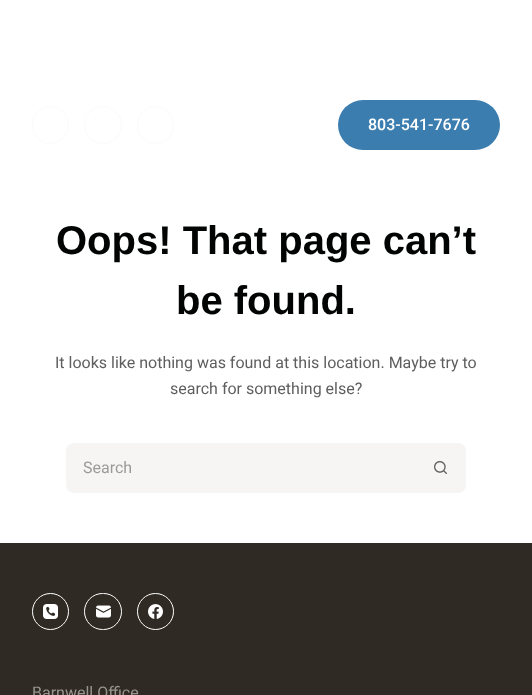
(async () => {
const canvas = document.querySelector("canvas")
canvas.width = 532
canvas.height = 695
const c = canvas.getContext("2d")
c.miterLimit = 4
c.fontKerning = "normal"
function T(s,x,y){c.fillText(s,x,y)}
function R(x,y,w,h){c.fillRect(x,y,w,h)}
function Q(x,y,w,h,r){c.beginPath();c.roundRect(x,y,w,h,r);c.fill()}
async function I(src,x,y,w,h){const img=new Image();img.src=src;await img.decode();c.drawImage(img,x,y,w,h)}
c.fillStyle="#fff"
R(0,0,532,695)
c.beginPath()
c.roundRect(32.5,106.5,36,37,18)
c.strokeStyle="#fafbfb"
c.stroke()
c.beginPath()
c.arc(103,125,18.5,0,7)
c.stroke()
c.beginPath()
c.roundRect(137.5,106.5,36,37,18)
c.stroke()
c.fillStyle="#3b7daf"
Q(338,100,162,50,25)
c.font="500 16px Roboto"
c.fillStyle="#fff"
T("803-541-7676",368,130)
c.font="bold 40px Liberation Sans"
c.fillStyle="#020404"
T("Oops! That page can’t",56,254)
T("be found.",176,314)
c.font="16px Roboto"
c.fillStyle="#5e5e5e"
T("It looks like nothing was found at this location. Maybe try to",55,368)
T("search for something else?",170,394)
c.fillStyle="#f7f5f4"
c.beginPath()
c.roundRect(66,443,350,50,[8,0,0,8])
c.fill()
c.fillStyle="#9b9a9a"
T("Search",83,473)
c.fillStyle="#f7f5f4"
c.beginPath()
c.roundRect(416,443,50,50,[0,8,8,0])
c.fill()
await I("1.png",434,461,13,13)
c.fillStyle="#2f2a23"
R(0,543,532,152)
c.beginPath()
c.arc(50.5,611.5,18,0,7)
c.strokeStyle="#fff"
c.stroke()
await I("2.png",43,604,15,15)
c.beginPath()
c.roundRect(84.5,593.5,37,36,18)
c.stroke()
await I("3.png",96,605,15,13)
c.beginPath()
c.arc(155.5,611.5,18,0,7)
c.stroke()
await I("4.png",148,604,15,15)
c.fillStyle="#979591"
T("Barnwell Office",32,698)
})()
